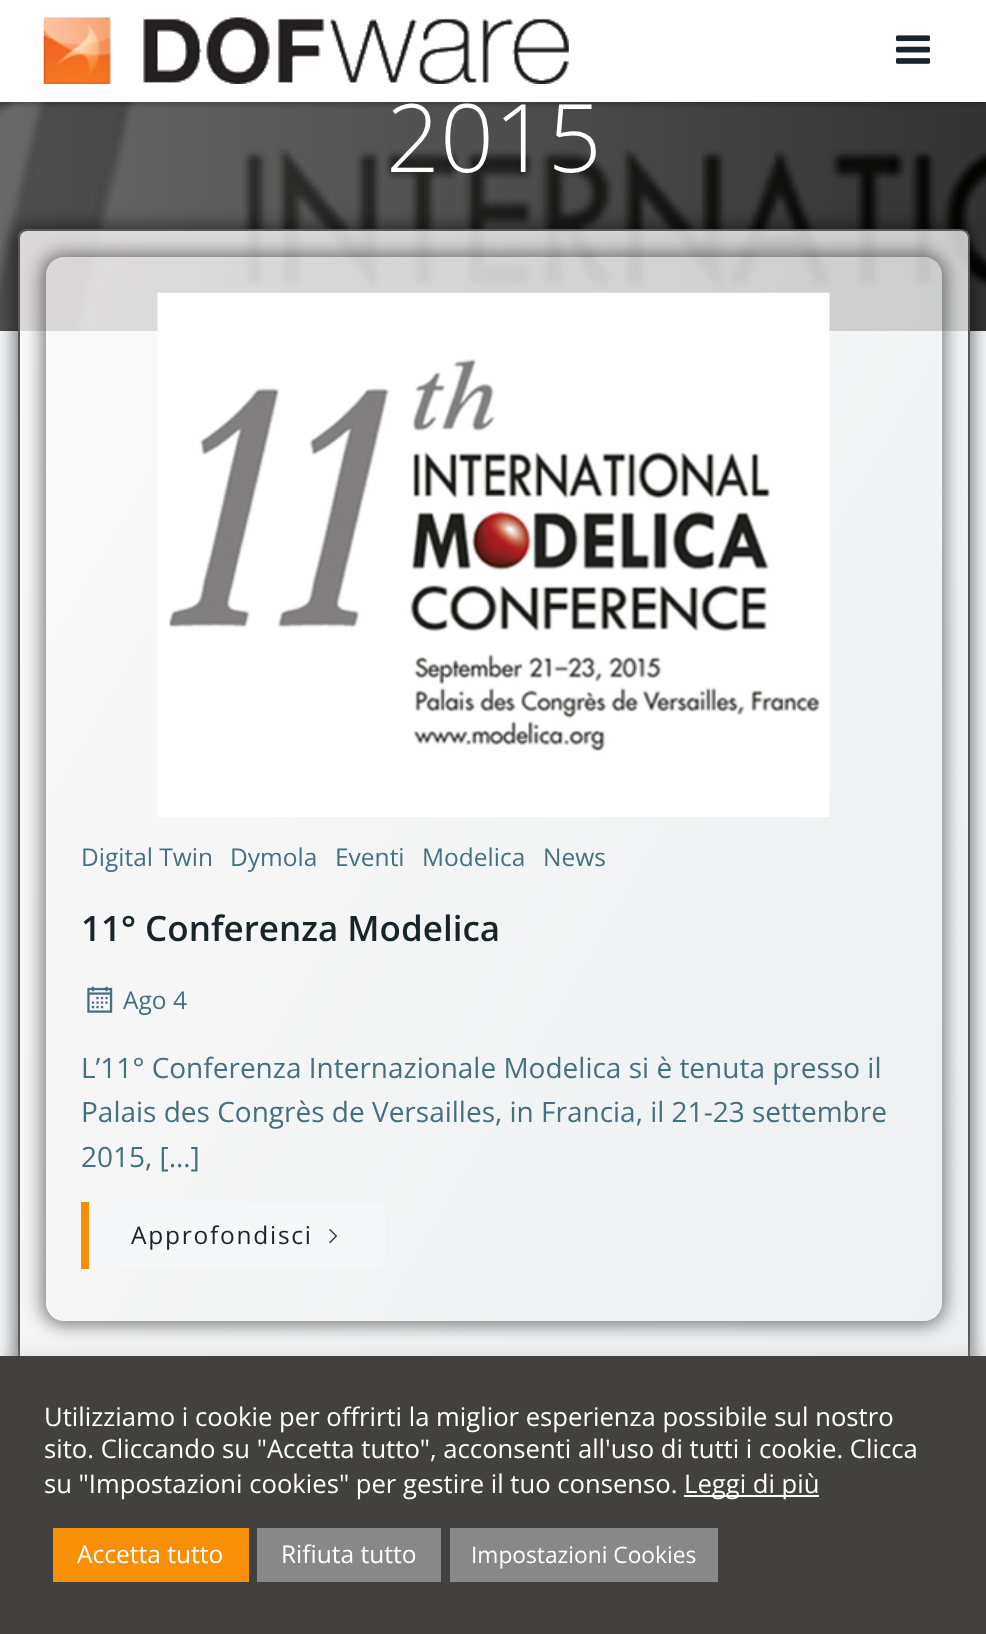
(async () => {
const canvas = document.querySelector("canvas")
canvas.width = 986
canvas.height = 1634
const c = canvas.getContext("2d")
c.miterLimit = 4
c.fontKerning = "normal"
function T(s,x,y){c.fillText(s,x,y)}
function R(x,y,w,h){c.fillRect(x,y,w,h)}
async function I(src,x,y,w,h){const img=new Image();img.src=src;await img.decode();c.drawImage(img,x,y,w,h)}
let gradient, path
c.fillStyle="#f5f7f8"
R(0,0,986,1634)
await I("3.png",0,102,986,229)
c.fillStyle="#00000080"
c.filter="blur(3.5px)"
c.beginPath()
c.rect(0,0,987,102)
c.fill()
c.filter="none"
c.fillStyle="#fff"
R(0,0,986,102)
await I("1.png",43,17,526,67)
await I("2.png",896,35,34,29)
c.font="300 94.5px Open Sans"
T("2015",386,172)
c.save()
path = new Path2D("M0 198h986v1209h-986zm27 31h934c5 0 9 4 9 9v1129c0 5-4 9-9 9h-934c-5 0-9-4-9-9v-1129c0-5 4-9 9-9z")
c.clip(path,"evenodd")
c.fillStyle="#00000080"
c.filter="blur(9px)"
c.beginPath()
c.roundRect(14,226,959,1153,12)
c.fill()
c.filter="none"
c.restore()
c.save()
c.beginPath()
c.roundRect(18,229,952,1147,9)
c.clip()
gradient = c.createLinearGradient(-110,454,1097,1151)
gradient.addColorStop(0,"#fdfbfbcc")
gradient.addColorStop(1,"#ebedeecc")
c.fillStyle = gradient
R(19,231,949,1125)
c.restore()
c.beginPath()
c.roundRect(19,230,950,1145,8)
c.strokeStyle="#595959"
c.lineWidth=2
c.stroke()
c.save()
path = new Path2D("M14 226h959v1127h-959zm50 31h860c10 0 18 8 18 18v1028c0 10-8 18-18 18h-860c-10 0-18-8-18-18v-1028c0-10 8-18 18-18z")
c.clip(path,"evenodd")
c.fillStyle="#00000080"
c.filter="blur(9px)"
c.beginPath()
c.roundRect(42,254,903,1071,21)
c.fill()
c.filter="none"
c.restore()
await I("4.png",157,292,673,525)
c.font="24.5px Open Sans"
c.fillStyle="#46707f"
T("Digital Twin",81,866)
T("Dymola",230,866)
T("Eventi",335,866)
T("Modelica",422,866)
T("News",543,866)
c.font="600 35px Open Sans"
c.fillStyle="#17252a"
T("11° Conferenza Modelica",81,941)
await I("5.png",87,986,26,27)
c.font="24.5px Open Sans"
c.fillStyle="#46707f"
T("Ago 4",123,1009)
c.font="28px Open Sans"
T("L’11° Conferenza Internazionale Modelica si è tenuta presso il",81,1078)
T("Palais des Congrès de Versailles, in Francia, il 21-23 settembre",81,1122)
T("2015, […]",81,1167)
c.fillStyle="#f5f7f8"
c.beginPath()
c.roundRect(89,1202,296,67,[0,9,9,0])
c.fill()
c.fillStyle="#f79007"
R(81,1202,8,67)
c.letterSpacing="1.75px"
c.font="24.5px Open Sans"
c.fillStyle="#17252a"
T("Approfondisci",131,1244)
await I("6.png",329,1229,9,15)
c.fillStyle="#acabab4d"
c.filter="blur(9px)"
c.beginPath()
c.rect(0,1355,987,278)
c.fill()
c.filter="none"
c.fillStyle="#424140"
R(0,1356,986,278)
c.letterSpacing="0px"
c.font="25.65px Open Sans"
c.fillStyle="#fff"
T("Utilizziamo i cookie per offrirti la miglior esperienza possibile sul nostro",44,1426)
T("sito. Cliccando su \"Accetta tutto\", acconsenti all'uso di tutti i cookie. Clicca",44,1458)
T("su \"Impostazioni cookies\" per gestire il tuo consenso.",44,1493)
R(684,1495,135,2)
T("Leggi di più",684,1493)
c.fillStyle="#f79007"
R(53,1528,196,54)
c.font="24.5px Open Sans"
c.fillStyle="#fff"
T("Accetta tutto",77,1563)
c.fillStyle="#898888"
R(257,1528,184,54)
c.fillStyle="#fff"
T("Rifiuta tutto",281,1563)
c.fillStyle="#898888"
R(450,1528,268,54)
c.font="22.75px Open Sans"
c.fillStyle="#fff"
T("Impostazioni Cookies",471,1563)
})()
